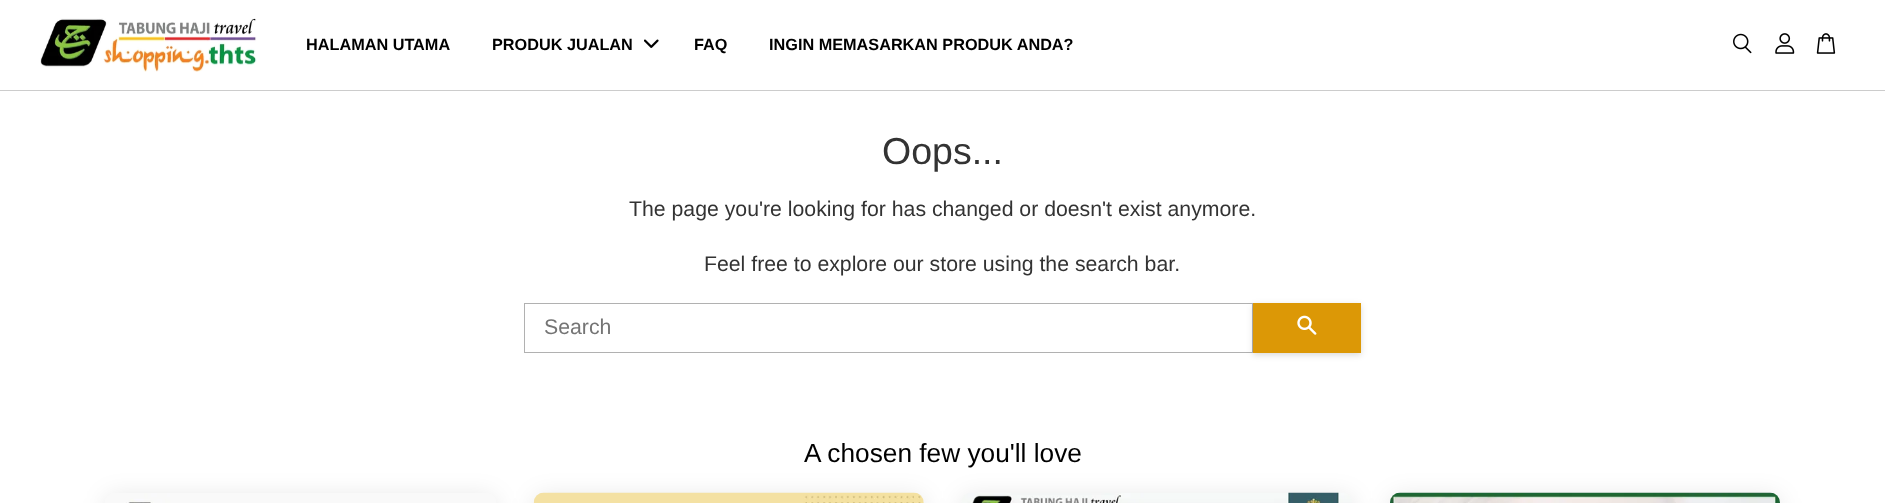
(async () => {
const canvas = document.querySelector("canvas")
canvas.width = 1885
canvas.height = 503
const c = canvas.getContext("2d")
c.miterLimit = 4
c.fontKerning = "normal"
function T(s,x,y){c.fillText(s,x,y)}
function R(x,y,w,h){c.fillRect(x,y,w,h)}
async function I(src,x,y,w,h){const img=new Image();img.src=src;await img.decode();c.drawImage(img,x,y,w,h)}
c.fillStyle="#fff"
R(0,0,1885,503)
c.fillStyle="#ccc"
R(0,90,1885,1)
await I("1.png",40,18,217,54)
c.font="bold 16.25px Liberation Sans"
c.fillStyle="#000"
T("HALAMAN UTAMA",306,50)
T("PRODUK JUALAN",492,50)
await I("2.png",644,39,15,9)
T("FAQ",694,50)
T("INGIN MEMASARKAN PRODUK ANDA?",769,50)
await I("3.png",1733,33,19,21)
await I("4.png",1775,33,20,21)
await I("5.png",1816,33,20,21)
c.font="37.5px Liberation Sans"
c.fillStyle="#333"
T("Oops...",882,164)
c.font="21.25px Liberation Sans"
T("The page you're looking for has changed or doesn't exist anymore.",629,216)
T("Feel free to explore our store using the search bar.",704,271)
c.strokeStyle="#b1b1b1"
c.strokeRect(524.5,303.5,728,49)
c.fillStyle="#757575"
T("Search",544,334)
c.fillStyle="#00000026"
c.filter="blur(3px)"
c.beginPath()
c.rect(1253,305,108,50)
c.fill()
c.filter="none"
c.fillStyle="#dc9806"
R(1253,303,108,50)
await I("6.png",1297,315,20,20)
c.font="26.25px Liberation Sans"
c.fillStyle="#000"
T("A chosen few you'll love",804,462)
c.fillStyle="#0000001a"
c.filter="blur(12.5px)"
c.beginPath()
c.roundRect(105,496,391,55,10)
c.fill()
c.filter="none"
await I("7.png",105,493,391,10)
c.filter="blur(12.5px)"
c.beginPath()
c.roundRect(534,496,390,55,10)
c.fill()
c.filter="none"
await I("8.png",533,492,391,11)
c.filter="blur(12.5px)"
c.beginPath()
c.roundRect(961,496,392,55,10)
c.fill()
c.filter="none"
await I("9.png",961,492,391,11)
c.filter="blur(12.5px)"
c.beginPath()
c.roundRect(1390,496,390,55,10)
c.fill()
c.filter="none"
await I("10.png",1390,492,390,11)
})()
